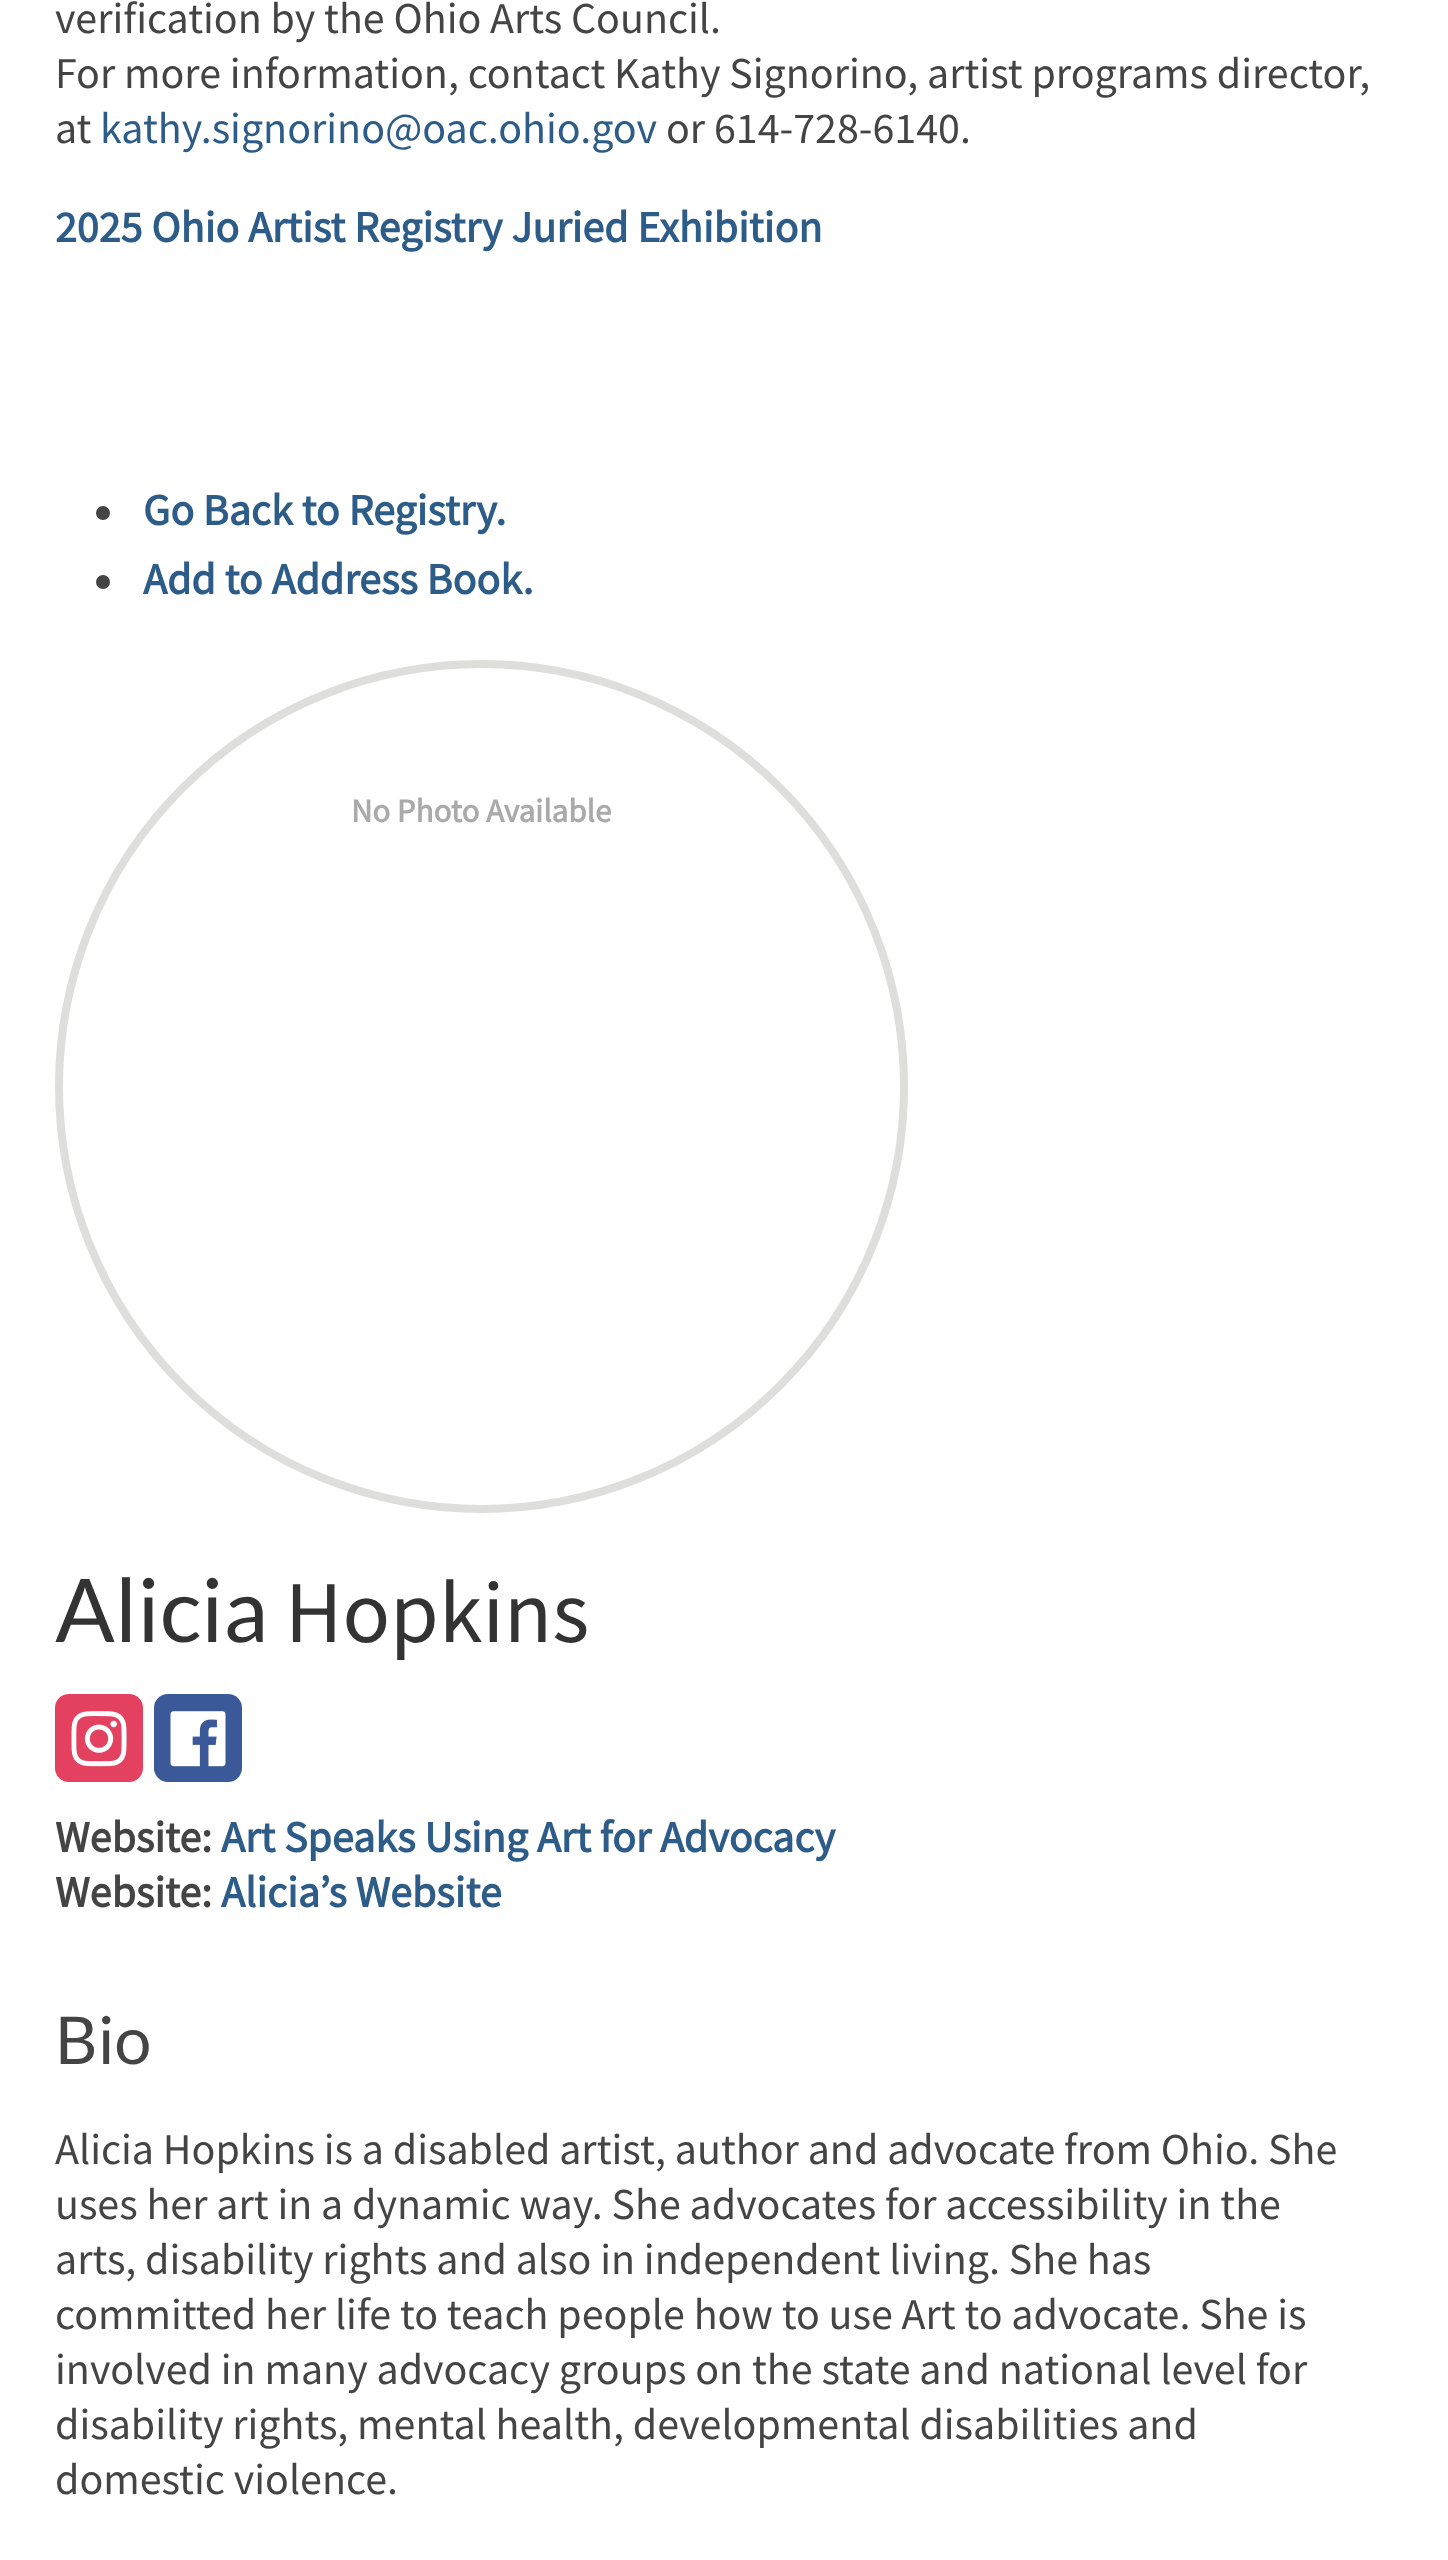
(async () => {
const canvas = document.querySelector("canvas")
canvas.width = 1448
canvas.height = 2560
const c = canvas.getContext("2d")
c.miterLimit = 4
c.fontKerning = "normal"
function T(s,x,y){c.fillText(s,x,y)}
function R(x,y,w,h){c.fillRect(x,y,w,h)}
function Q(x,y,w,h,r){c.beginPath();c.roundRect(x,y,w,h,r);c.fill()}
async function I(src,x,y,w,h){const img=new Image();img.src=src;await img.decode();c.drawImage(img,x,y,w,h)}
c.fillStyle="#fff"
R(0,0,1448,2560)
c.font="44px Source Sans Pro"
c.fillStyle="#444"
T("verification by the Ohio Arts Council.",55,33)
T("For more information, contact Kathy Signorino, artist programs director,",55,88)
T("at",55,143)
c.fillStyle="#2d5c88"
T("kathy.signorino@oac.ohio.gov",100,143)
c.fillStyle="#444"
T("or 614-728-6140.",666,143)
c.font="bold 44px Source Sans Pro"
c.fillStyle="#2d5c88"
T("2025 Ohio Artist Registry Juried Exhibition",55,242)
c.fillStyle="#444"
c.beginPath()
c.arc(103,513,7,0,7)
c.fill()
c.fillStyle="#2d5c88"
T("Go Back to Registry.",143,525)
c.fillStyle="#444"
c.beginPath()
c.arc(103,582,7,0,7)
c.fill()
c.fillStyle="#2d5c88"
T("Add to Address Book.",143,594)
c.beginPath()
c.arc(481.5,1086.5,422.5,0,7)
c.strokeStyle="#dededc"
c.lineWidth=8
c.stroke()
c.font="bold 33px Source Sans Pro"
c.fillStyle="#aaa"
T("No Photo Available",351,822)
c.font="88px Lato"
c.fillStyle="#333"
T("Alicia",55,1642)
c.font="88px Source Sans Pro"
T("Hopkins",285,1642)
c.fillStyle="#e4405f"
Q(55,1694,88,88,14)
await I("1.png",71,1711,56,56)
c.fillStyle="#3b5998"
Q(154,1694,88,88,14)
await I("2.png",170,1711,56,56)
c.font="bold 44px Source Sans Pro"
c.fillStyle="#444"
T("Website:",55,1852)
c.fillStyle="#2d5c88"
T("Art Speaks Using Art for Advocacy",221,1852)
c.fillStyle="#444"
T("Website:",55,1907)
c.fillStyle="#2d5c88"
T("Alicia’s Website",221,1907)
c.font="66px Lato"
c.fillStyle="#444"
T("Bio",55,2064)
c.font="44px Source Sans Pro"
T("Alicia Hopkins is a disabled artist, author and advocate from Ohio. She",55,2164)
T("uses her art in a dynamic way. She advocates for accessibility in the",55,2219)
T("arts, disability rights and also in independent living. She has",55,2274)
T("committed her life to teach people how to use Art to advocate. She is",55,2329)
T("involved in many advocacy groups on the state and national level for",55,2384)
T("disability rights, mental health, developmental disabilities and",55,2439)
T("domestic violence.",55,2494)
})()
